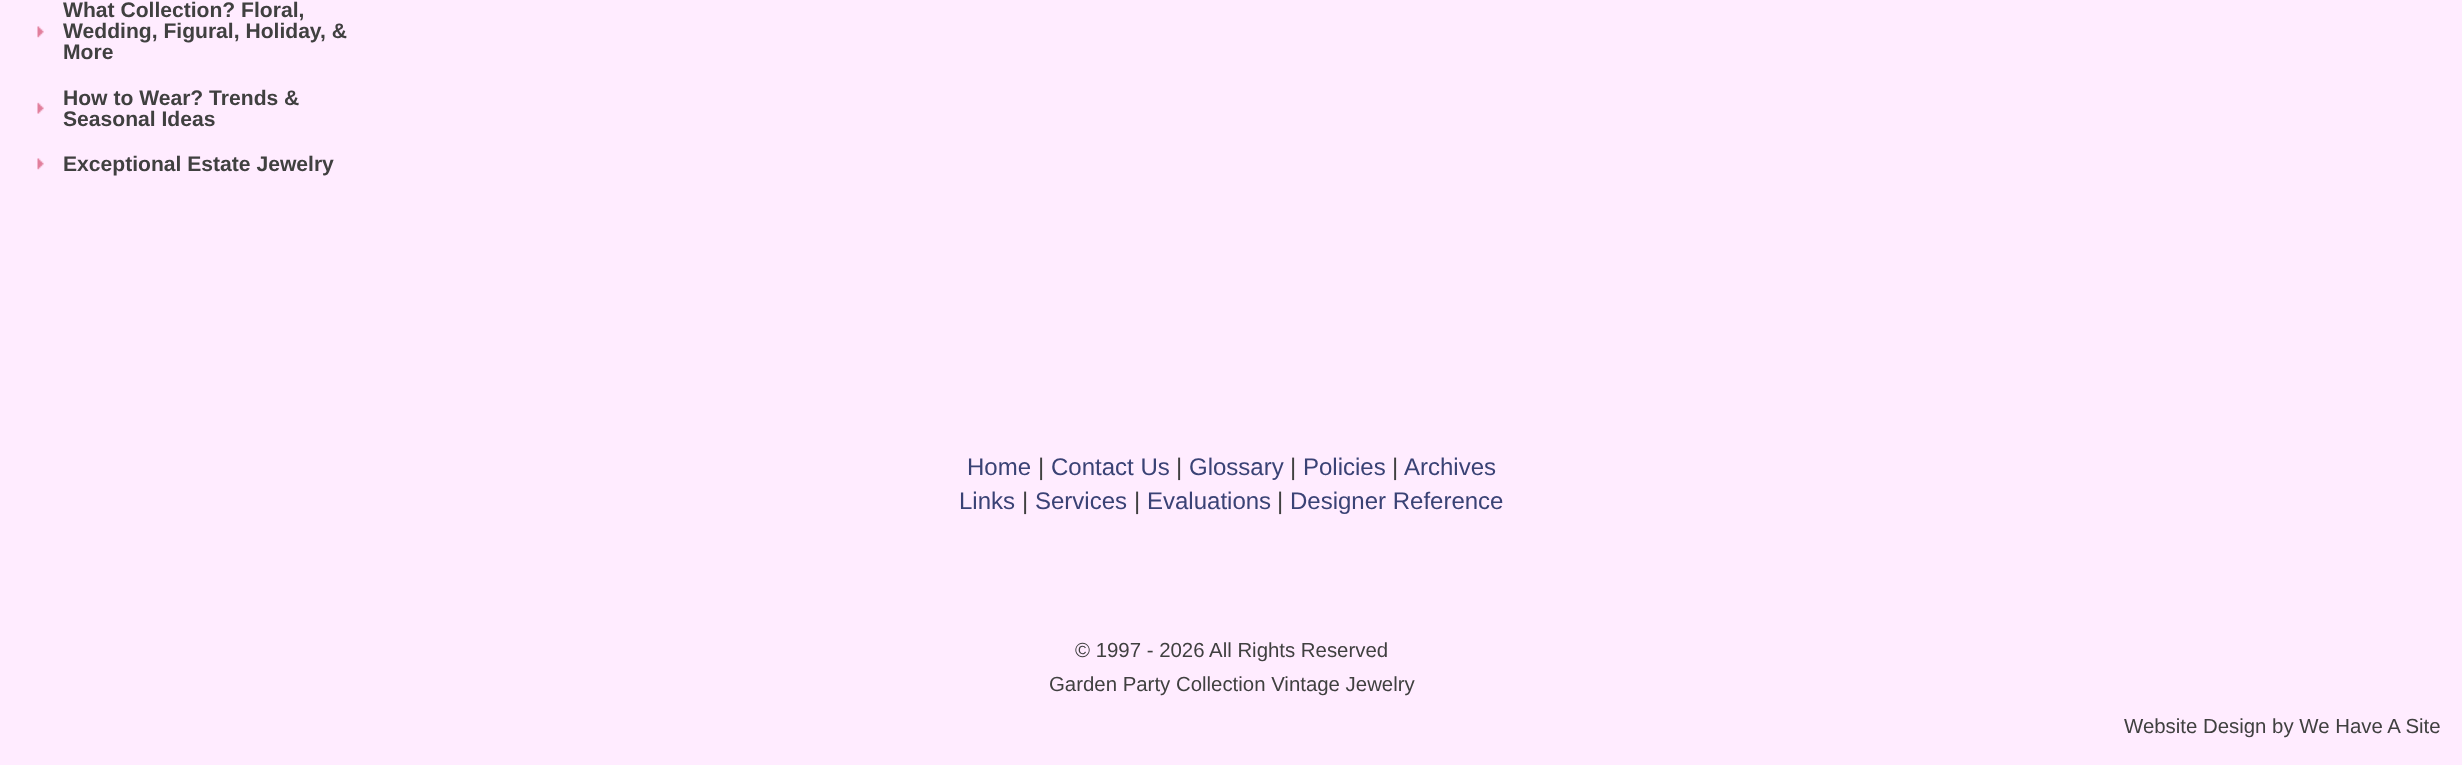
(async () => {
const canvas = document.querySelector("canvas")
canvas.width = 2462
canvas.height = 765
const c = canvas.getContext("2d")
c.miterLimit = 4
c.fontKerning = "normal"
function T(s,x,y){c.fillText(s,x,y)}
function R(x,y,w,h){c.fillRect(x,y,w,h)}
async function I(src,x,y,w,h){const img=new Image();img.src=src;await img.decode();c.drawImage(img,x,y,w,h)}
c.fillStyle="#ffecff"
R(0,0,2462,765)
c.font="bold 21.1px Liberation Sans"
c.fillStyle="#404040"
T("What Collection? Floral,",63,17)
await I("1.png",37,26,7,12)
T("Wedding, Figural, Holiday, &",63,38)
T("More",63,59)
T("How to Wear? Trends &",63,105)
await I("2.png",37,102,7,12)
T("Seasonal Ideas",63,126)
await I("1.png",37,158,7,12)
T("Exceptional Estate Jewelry",63,171)
c.font="24px Liberation Sans"
c.fillStyle="#3a4275"
T("Home",967,475)
c.fillStyle="#404040"
T("|",1038,475)
c.fillStyle="#3a4275"
T("Contact Us",1051,475)
c.fillStyle="#404040"
T("|",1176,475)
c.fillStyle="#3a4275"
T("Glossary",1189,475)
c.fillStyle="#404040"
T("|",1290,475)
c.fillStyle="#3a4275"
T("Policies",1303,475)
c.fillStyle="#404040"
T("|",1392,475)
c.fillStyle="#3a4275"
T("Archives",1404,475)
T("Links",959,509)
c.fillStyle="#404040"
T("|",1022,509)
c.fillStyle="#3a4275"
T("Services",1035,509)
c.fillStyle="#404040"
T("|",1134,509)
c.fillStyle="#3a4275"
T("Evaluations",1147,509)
c.fillStyle="#404040"
T("|",1277,509)
c.fillStyle="#3a4275"
T("Designer Reference",1290,509)
c.font="20.4px Liberation Sans"
c.fillStyle="#404040"
T("© 1997 - 2026 All Rights Reserved",1075,657)
T("Garden Party Collection Vintage Jewelry",1049,691)
T("Website Design by We Have A Site",2124,733)
})()
